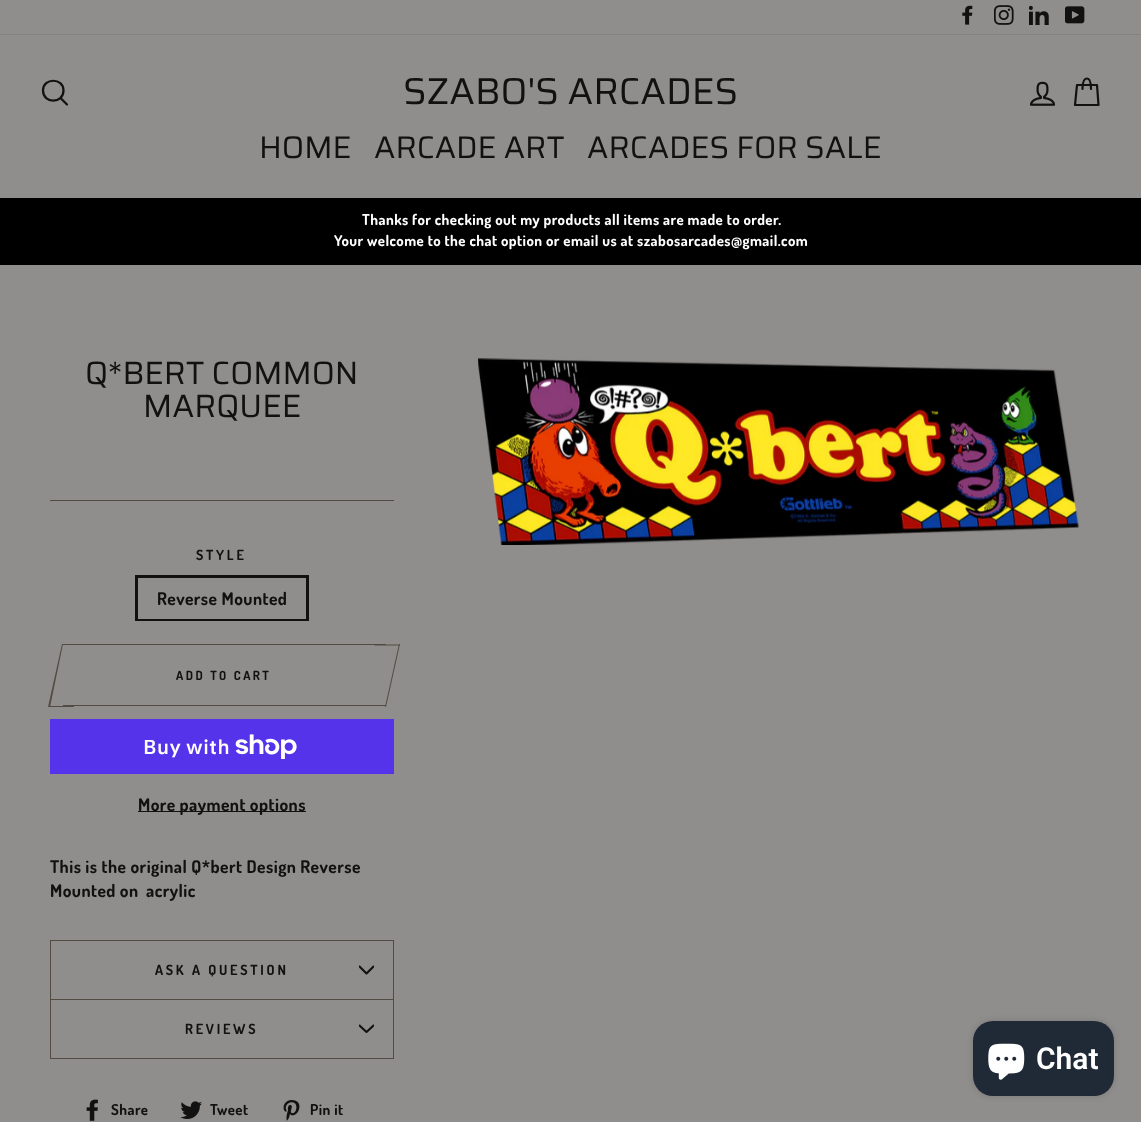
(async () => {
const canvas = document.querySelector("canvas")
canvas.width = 1141
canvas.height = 1122
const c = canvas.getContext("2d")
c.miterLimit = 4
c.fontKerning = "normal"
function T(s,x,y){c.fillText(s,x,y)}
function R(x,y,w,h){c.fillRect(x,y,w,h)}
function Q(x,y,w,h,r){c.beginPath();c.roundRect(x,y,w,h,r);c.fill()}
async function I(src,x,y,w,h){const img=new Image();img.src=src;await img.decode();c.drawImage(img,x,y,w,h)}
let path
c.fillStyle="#908e8c"
R(0,0,1141,1122)
await I("1.png",962,5,11,20)
await I("2.png",994,5,20,20)
await I("3.png",1029,5,20,20)
await I("4.png",1065,6,20,18)
c.fillStyle="#838280"
R(0,34,1141,1)
path = new Path2D("M63.5 90.5c0 13.5-20.5 13.5-20.5 0c0-13 20.5-13 20.5 0zm3.5 14l-6.5-6.5")
c.strokeStyle="#111"
c.lineWidth=2.2
c.lineCap="round"
c.lineJoin="round"
c.stroke(path)
c.font="37.5px Saira"
c.fillStyle="#111"
T("SZABO'S ARCADES",403,104)
await I("5.png",1029,81,27,25)
path = new Path2D("M1082.5 89c0-8.5 2-10.5 4.5-10.5c2 0 4 2 4 10.5m-14-4h20l1.5 20h-23.5z")
c.stroke(path)
c.font="31.25px Saira"
T("HOME",259,158)
T("ARCADE ART",374,158)
T("ARCADES FOR SALE",587,158)
c.fillStyle="#000"
R(0,198,1141,67)
c.letterSpacing="0.45px"
c.font="bold 14.9px Dosis"
c.fillStyle="#fff"
T("Thanks for checking out my products all items are made to order.",362,225)
T("Your welcome to the chat option or email us at szabosarcades@gmail.com",334,246)
c.letterSpacing="0px"
c.font="32.25px Saira"
c.fillStyle="#111"
T("Q*BERT COMMON",85,384)
T("MARQUEE",143,417)
c.fillStyle="#514b41"
R(50,500,344,1)
c.letterSpacing="2.75px"
c.font="bold 14px Dosis"
c.fillStyle="#111"
T("STYLE",196,560)
c.lineWidth=3
c.lineJoin="miter"
c.strokeRect(136.5,576.5,171,43)
c.fillStyle="#908e8c"
R(138,618,168,1)
c.letterSpacing="0.45px"
c.font="bold 17.5px Dosis"
c.fillStyle="#111"
T("Reverse Mounted",157,605)
c.fillStyle="#514b41"
R(63,644,323,1)
R(63,705,323,1)
R(49,706,25,1)
path = new Path2D("M62 644h1l-13 63h-2z")
c.fill(path)
c.letterSpacing="2.5px"
c.font="bold 12.5px Dosis"
c.fillStyle="#111"
T("ADD TO CART",176,680)
c.fillStyle="#514b41"
path = new Path2D("M375 644.5h25l-.5 1h-25z")
c.fill(path)
path = new Path2D("M399 644h1l-14 63h-1z")
c.fill(path)
c.fillStyle="#5433eb"
R(50,719,344,55)
c.letterSpacing="0.45px"
c.font="600 20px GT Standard"
c.fillStyle="#fff"
T("Buy with",143,754)
await I("6.png",235,734,62,25)
c.fillStyle="#111"
R(138,811,168,1)
c.font="bold 17.5px Dosis"
T("More payment options",138,811)
T("This is the original Q*bert Design Reverse",50,873)
T("Mounted on",50,897)
T("acrylic",146,897)
c.fillStyle="#514b41"
R(50,1058,344,1)
R(50,940,344,1)
R(393,940,1,59)
R(50,940,1,59)
c.letterSpacing="2.75px"
c.font="bold 14px Dosis"
c.fillStyle="#111"
T("ASK A QUESTION",155,975)
c.save()
c.beginPath()
c.rect(359,963,15,15)
c.clip()
path = new Path2D("M359.5 966.5l7 7l7-7")
c.lineWidth=2.1
c.lineJoin="round"
c.stroke(path)
c.restore()
c.fillStyle="#514b41"
R(50,999,344,1)
R(393,999,1,59)
R(50,999,1,59)
c.fillStyle="#111"
T("REVIEWS",185,1034)
c.save()
c.beginPath()
c.rect(359,1021,15,15)
c.clip()
path = new Path2D("M359.5 1025.5l7 6.5l7-6.5")
c.lineWidth=2.1
c.lineJoin="round"
c.stroke(path)
c.restore()
await I("7.png",86,1099,12,22)
c.letterSpacing="0.45px"
c.font="bold 14.9px Dosis"
T("Share",111,1115)
await I("8.png",180,1101,22,18)
T("Tweet",210,1115)
await I("9.png",283,1100,17,21)
T("Pin it",310,1115)
await I("10.png",478,358,601,187)
c.fillStyle="#00000026"
c.filter="blur(3px)"
c.beginPath()
c.roundRect(973,1021,141,75,20)
c.fill()
c.filter="none"
c.fillStyle="#202a36"
Q(973,1021,141,75,20)
await I("11.png",988,1043,37,37)
c.letterSpacing="0px"
c.font="600 30px Roboto"
c.fillStyle="#fff"
T("Chat",1036,1069)
})()
